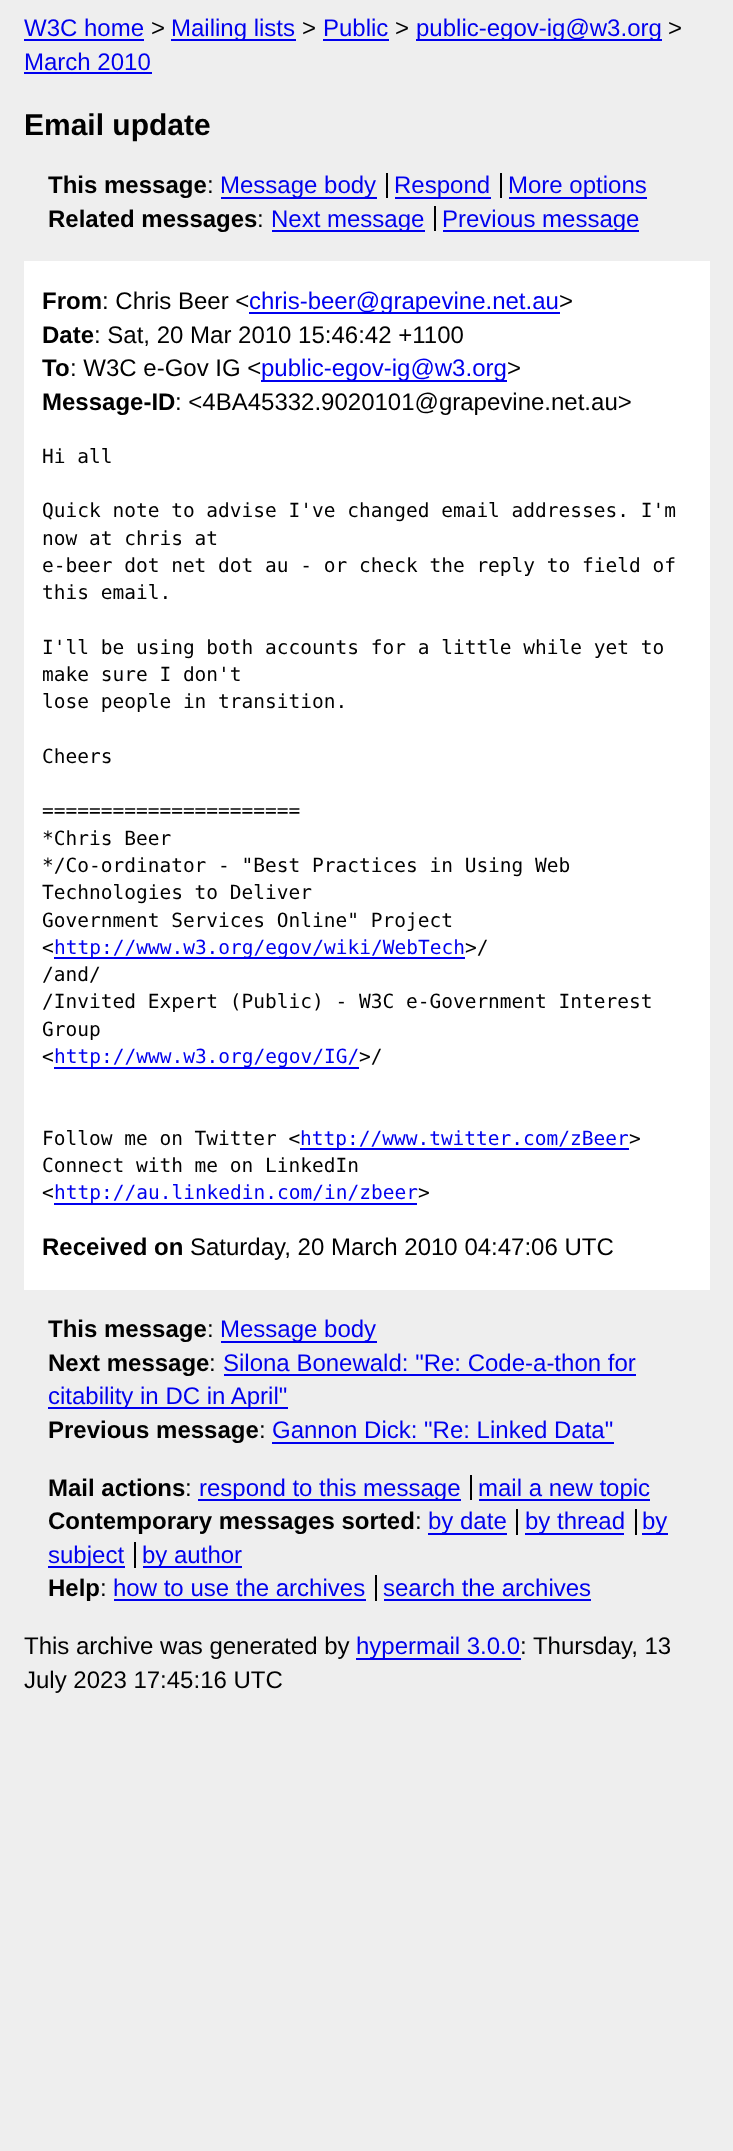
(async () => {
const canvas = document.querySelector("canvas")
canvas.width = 733
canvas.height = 2151
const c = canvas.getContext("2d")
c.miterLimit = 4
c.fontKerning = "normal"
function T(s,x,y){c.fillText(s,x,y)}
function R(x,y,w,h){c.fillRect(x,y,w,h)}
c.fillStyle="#eee"
R(0,0,733,2151)
c.font="24px Liberation Sans"
c.fillStyle="#00e"
T("W3C home",24,36)
R(24,39,120,2)
c.fillStyle="#000"
T(">",151,36)
c.fillStyle="#00e"
R(171,39,125,2)
T("Mailing lists",171,36)
c.fillStyle="#000"
T(">",302,36)
c.fillStyle="#00e"
T("Public",323,36)
R(323,39,66,2)
c.fillStyle="#000"
T(">",395,36)
c.fillStyle="#00e"
R(416,39,246,2)
T("public-egov-ig@w3.org",416,36)
c.fillStyle="#000"
T(">",668,36)
c.fillStyle="#00e"
T("March 2010",24,70)
R(24,72,128,2)
c.font="bold 30px Liberation Sans"
c.fillStyle="#000"
T("Email update",24,135)
c.font="bold 24px Liberation Sans"
T("This message",48,193)
c.font="24px Liberation Sans"
T(":",207,193)
c.fillStyle="#00e"
R(221,197,156,2)
T("Message body",220,193)
R(395,197,96,2)
T("Respond",394,193)
c.fillStyle="#000"
R(386,173,2,25)
c.fillStyle="#00e"
R(509,197,138,2)
T("More options",508,193)
c.fillStyle="#000"
R(500,173,2,25)
c.font="bold 24px Liberation Sans"
T("Related messages",48,227)
c.font="24px Liberation Sans"
T(":",257,227)
c.fillStyle="#00e"
R(272,230,153,2)
T("Next message",271,227)
R(443,230,196,2)
T("Previous message",442,227)
c.fillStyle="#000"
R(434,206,2,25)
c.fillStyle="#fff"
R(24,261,686,1029)
c.font="bold 24px Liberation Sans"
c.fillStyle="#000"
T("From",42,309)
c.font="24px Liberation Sans"
T(": Chris Beer <",102,309)
c.fillStyle="#00e"
R(249,312,311,2)
T("chris-beer@grapevine.net.au",249,309)
c.fillStyle="#000"
T(">",559,309)
c.font="bold 24px Liberation Sans"
T("Date",42,343)
c.font="24px Liberation Sans"
T(": Sat, 20 Mar 2010 15:46:42 +1100",94,343)
c.font="bold 24px Liberation Sans"
T("To",42,376)
c.font="24px Liberation Sans"
T(": W3C e-Gov IG <",70,376)
c.fillStyle="#00e"
R(261,380,246,2)
T("public-egov-ig@w3.org",261,376)
c.fillStyle="#000"
T(">",507,376)
c.font="bold 24px Liberation Sans"
T("Message-ID",42,410)
c.font="24px Liberation Sans"
T(": <4BA45332.9020101@grapevine.net.au>",175,410)
c.font="19.5px DejaVu Sans Mono"
T("Hi all",42,463)
T("Quick note to advise I've changed email addresses. I'm",42,517)
T("now at chris at",42,545)
T("e-beer dot net dot au - or check the reply to field of",42,572)
T("this email.",42,599)
T("I'll be using both accounts for a little while yet to",42,654)
T("make sure I don't",42,681)
T("lose people in transition.",42,708)
T("Cheers",42,763)
T("======================",42,817)
T("*Chris Beer",42,845)
T("*/Co-ordinator - \"Best Practices in Using Web",42,872)
T("Technologies to Deliver",42,899)
T("Government Services Online\" Project",42,927)
T("<",42,954)
c.fillStyle="#00e"
R(54,957,411,2)
T("http://www.w3.org/egov/wiki/WebTech",54,954)
c.fillStyle="#000"
T(">/",465,954)
T("/and/",42,981)
T("/Invited Expert (Public) - W3C e-Government Interest",42,1008)
T("Group",42,1036)
T("<",42,1063)
c.fillStyle="#00e"
R(54,1067,305,2)
T("http://www.w3.org/egov/IG/",54,1063)
c.fillStyle="#000"
T(">/",359,1063)
T("Follow me on Twitter <",42,1145)
c.fillStyle="#00e"
R(300,1148,329,2)
T("http://www.twitter.com/zBeer",300,1145)
c.fillStyle="#000"
T(">",629,1145)
T("Connect with me on LinkedIn",42,1172)
T("<",42,1199)
c.fillStyle="#00e"
R(54,1203,363,2)
T("http://au.linkedin.com/in/zbeer",54,1199)
c.fillStyle="#000"
T(">",418,1199)
c.font="bold 24px Liberation Sans"
T("Received on",42,1255)
c.font="24px Liberation Sans"
T("Saturday, 20 March 2010 04:47:06 UTC",190,1255)
c.font="bold 24px Liberation Sans"
T("This message",48,1337)
c.font="24px Liberation Sans"
T(":",207,1337)
c.fillStyle="#00e"
R(221,1341,156,2)
T("Message body",220,1337)
c.font="bold 24px Liberation Sans"
c.fillStyle="#000"
T("Next message",48,1371)
c.font="24px Liberation Sans"
T(":",209,1371)
c.fillStyle="#00e"
T("Silona Bonewald: \"Re: Code-a-thon for",223,1371)
R(224,1374,412,2)
R(48,1407,240,2)
T("citability in DC in April\"",48,1404)
c.font="bold 24px Liberation Sans"
c.fillStyle="#000"
T("Previous message",48,1438)
c.font="24px Liberation Sans"
T(":",259,1438)
c.fillStyle="#00e"
T("Gannon Dick: \"Re: Linked Data\"",272,1438)
R(272,1442,342,2)
c.font="bold 24px Liberation Sans"
c.fillStyle="#000"
T("Mail actions",48,1496)
c.font="24px Liberation Sans"
T(":",185,1496)
c.fillStyle="#00e"
R(198,1499,263,2)
T("respond to this message",199,1496)
R(479,1499,171,2)
T("mail a new topic",478,1496)
c.fillStyle="#000"
R(470,1475,2,25)
c.font="bold 24px Liberation Sans"
T("Contemporary messages sorted",48,1529)
c.font="24px Liberation Sans"
T(":",415,1529)
c.fillStyle="#00e"
R(428,1533,79,2)
T("by date",428,1529)
R(525,1533,99,2)
T("by thread",525,1529)
c.fillStyle="#000"
R(516,1509,2,26)
c.fillStyle="#00e"
R(642,1533,26,2)
T("by",642,1529)
c.fillStyle="#000"
R(635,1509,2,26)
c.fillStyle="#00e"
R(48,1566,77,2)
T("subject",48,1563)
R(143,1566,99,2)
T("by author",142,1563)
c.fillStyle="#000"
R(134,1542,2,26)
c.font="bold 24px Liberation Sans"
T("Help",48,1596)
c.font="24px Liberation Sans"
T(":",100,1596)
c.fillStyle="#00e"
T("how to use the archives",113,1596)
R(114,1599,252,2)
T("search the archives",383,1596)
c.fillStyle="#000"
R(375,1575,2,26)
c.fillStyle="#00e"
R(384,1599,207,2)
c.fillStyle="#000"
T("This archive was generated by",24,1654)
c.fillStyle="#00e"
R(356,1658,165,2)
T("hypermail 3.0.0",356,1654)
c.fillStyle="#000"
T(": Thursday, 13",520,1654)
T("July 2023 17:45:16 UTC",24,1688)
})()
